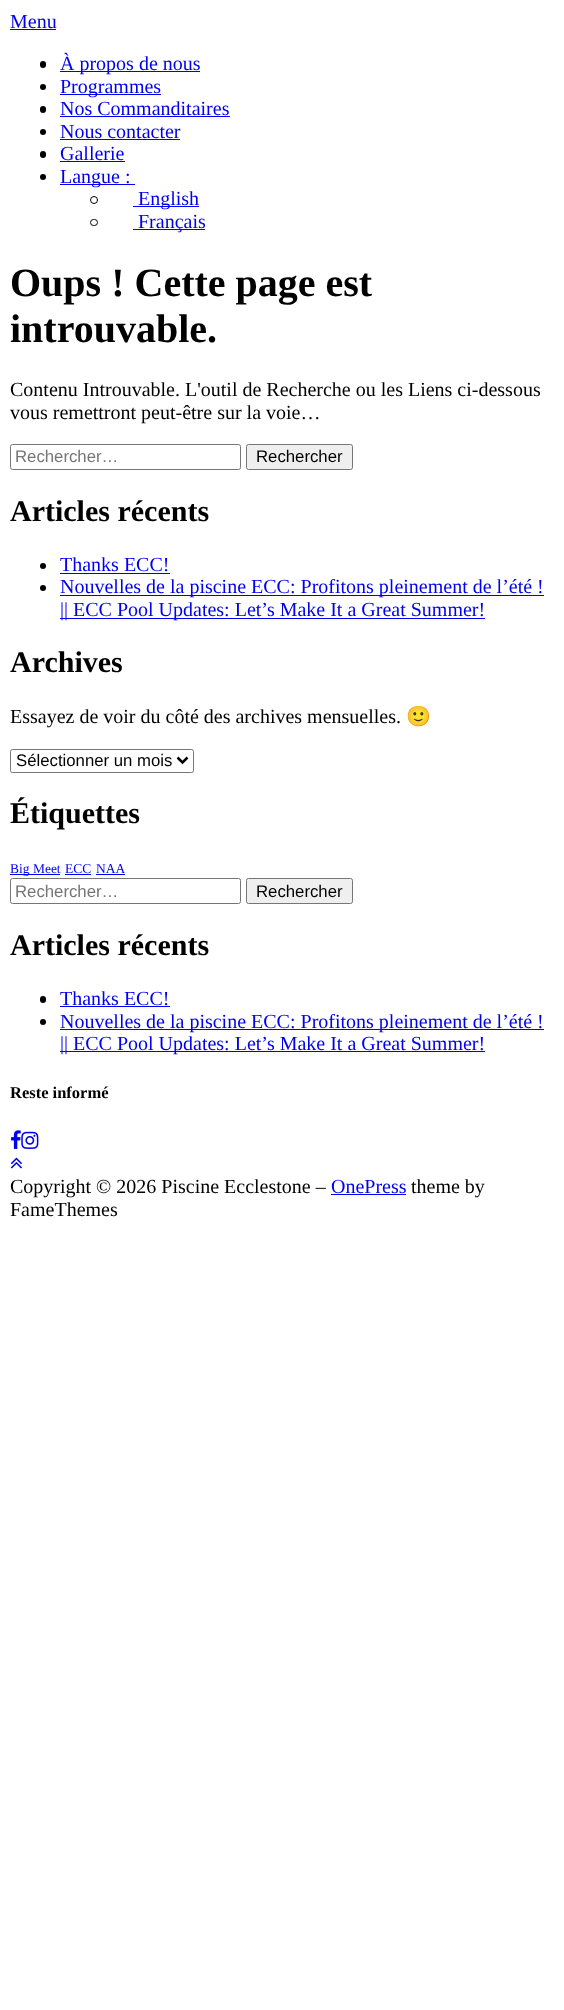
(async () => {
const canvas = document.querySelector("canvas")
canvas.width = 564
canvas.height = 2010
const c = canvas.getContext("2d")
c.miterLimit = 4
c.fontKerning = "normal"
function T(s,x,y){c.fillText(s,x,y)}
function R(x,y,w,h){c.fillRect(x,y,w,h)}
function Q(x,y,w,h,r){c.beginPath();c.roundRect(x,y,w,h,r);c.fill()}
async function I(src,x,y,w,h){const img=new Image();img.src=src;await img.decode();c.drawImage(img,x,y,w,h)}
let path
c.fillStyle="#fff"
R(0,0,564,2010)
c.font="20px Liberation Serif"
c.fillStyle="#00e"
T("Menu",10,28)
R(10,29,46,1)
c.fillStyle="#000"
Q(40,61,6,7,3)
c.fillStyle="#00e"
R(60,71,140,1)
T("À propos de nous",60,70)
c.fillStyle="#000"
c.beginPath()
c.arc(43,87,3,0,7)
c.fill()
c.fillStyle="#00e"
R(60,94,101,1)
T("Programmes",60,93)
c.fillStyle="#000"
Q(40,106,6,7,3)
c.fillStyle="#00e"
T("Nos Commanditaires",60,115)
R(60,116,170,1)
c.fillStyle="#000"
c.beginPath()
c.arc(43,132,3,0,7)
c.fill()
c.fillStyle="#00e"
T("Nous contacter",60,138)
R(60,139,120,1)
c.fillStyle="#000"
Q(40,151,6,7,3)
c.fillStyle="#00e"
T("Gallerie",60,160)
R(60,161,65,1)
c.fillStyle="#000"
c.beginPath()
c.arc(43,177,3,0,7)
c.fill()
c.fillStyle="#00e"
R(60,184,75,1)
T("Langue :",60,183)
c.beginPath()
c.arc(94,200,3.5,0,7)
c.strokeStyle="#000"
c.stroke()
R(133,206,66,1)
T("English",138,205)
c.beginPath()
c.roundRect(90.5,219.5,7,6,3)
c.stroke()
R(133,229,72,1)
T("Français",138,228)
c.font="bold 40px Liberation Serif"
c.fillStyle="#000"
T("Oups ! Cette page est",10,296)
T("introuvable.",10,342)
c.font="20px Liberation Serif"
T("Contenu Introuvable. L'outil de Recherche ou les Liens ci-dessous",10,396)
T("vous remettront peut-être sur la voie…",10,419)
c.beginPath()
c.roundRect(10.5,444.5,230,25,2)
c.strokeStyle="#767676"
c.stroke()
c.font="16.75px Liberation Sans"
c.fillStyle="#757575"
T("Rechercher…",15,462)
c.fillStyle="#efefef"
c.beginPath()
c.roundRect(246.5,444.5,106,25,2)
c.fill()
c.stroke()
c.fillStyle="#000"
T("Rechercher",256,462)
c.font="bold 30px Liberation Serif"
T("Articles récents",10,521)
c.beginPath()
c.arc(43,566,3,0,7)
c.fill()
c.font="20px Liberation Serif"
c.fillStyle="#00e"
T("Thanks ECC!",60,571)
R(60,573,110,1)
c.fillStyle="#000"
c.beginPath()
c.arc(43,588,3,0,7)
c.fill()
c.fillStyle="#00e"
R(60,595,484,1)
T("Nouvelles de la piscine ECC: Profitons pleinement de l’été !",60,593)
R(60,618,425,1)
T("|| ECC Pool Updates: Let’s Make It a Great Summer!",60,616)
c.font="bold 30px Liberation Serif"
c.fillStyle="#000"
T("Archives",10,672)
c.font="20px Liberation Serif"
T("Essayez de voir du côté des archives mensuelles.",10,723)
c.font="20px Noto Color Emoji"
T("🙂",406,723)
c.beginPath()
c.roundRect(10.5,749.5,183,23,2)
c.stroke()
path = new Path2D("M177.5 757.5l5 5l5-5")
c.strokeStyle="#000"
c.lineWidth=2.5
c.stroke(path)
c.font="16.75px Liberation Sans"
T("Sélectionner un mois",16,766)
c.font="bold 30px Liberation Serif"
T("Étiquettes",10,823)
c.fillStyle="#00e"
R(10,874,50,1)
c.font="13.5px Liberation Serif"
T("Big Meet",10,873)
T("ECC",65,873)
R(65,874,26,1)
T("NAA",96,873)
R(96,874,29,1)
c.beginPath()
c.roundRect(10.5,878.5,230,25,2)
c.strokeStyle="#767676"
c.lineWidth=1
c.stroke()
c.font="16.75px Liberation Sans"
c.fillStyle="#757575"
T("Rechercher…",15,897)
c.fillStyle="#efefef"
c.beginPath()
c.roundRect(246.5,878.5,106,25,2)
c.fill()
c.stroke()
c.fillStyle="#000"
T("Rechercher",256,897)
c.font="bold 30px Liberation Serif"
T("Articles récents",10,955)
Q(40,996,6,7,3)
c.font="20px Liberation Serif"
c.fillStyle="#00e"
T("Thanks ECC!",60,1005)
R(60,1006,110,1)
c.fillStyle="#000"
c.beginPath()
c.arc(43,1022,3,0,7)
c.fill()
c.fillStyle="#00e"
R(60,1029,484,1)
T("Nouvelles de la piscine ECC: Profitons pleinement de l’été !",60,1028)
R(60,1051,425,1)
T("|| ECC Pool Updates: Let’s Make It a Great Summer!",60,1050)
c.font="bold 16.5px Liberation Serif"
c.fillStyle="#000"
T("Reste informé",10,1098)
await I("1.png",11,1130,10,19)
await I("2.png",21,1131,18,18)
await I("3.png",10,1157,12,12)
c.font="20px Liberation Serif"
T("Copyright © 2026 Piscine Ecclestone –",10,1193)
c.fillStyle="#00e"
T("OnePress",331,1193)
R(331,1194,75,1)
c.fillStyle="#000"
T("theme by",411,1193)
T("FameThemes",10,1216)
})()
